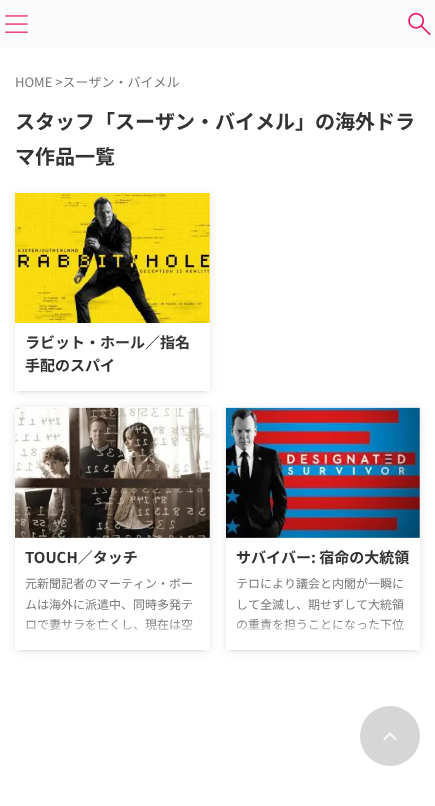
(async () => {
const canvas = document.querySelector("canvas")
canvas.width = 435
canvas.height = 806
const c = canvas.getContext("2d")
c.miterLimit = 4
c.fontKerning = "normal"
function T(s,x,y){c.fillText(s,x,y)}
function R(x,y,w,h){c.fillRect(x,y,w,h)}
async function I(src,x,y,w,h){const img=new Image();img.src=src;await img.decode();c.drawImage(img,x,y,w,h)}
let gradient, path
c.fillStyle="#fbfbfb"
R(0,0,435,806)
await I("1.png",5,15,23,18)
await I("2.png",408,12,23,24)
c.fillStyle="#fff"
R(0,48,435,758)
c.font="13px Noto Sans JP"
c.fillStyle="#777"
T("HOME >スーザン・バイメル",15,87)
c.font="bold 20px Noto Sans JP"
c.fillStyle="#333"
T("スタッフ「スーザン・バイメル」の海外ドラ",15,129)
T("マ作品一覧",15,164)
c.save()
c.beginPath()
c.rect(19,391,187,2)
c.clip()
c.fillStyle="#0000001a"
c.filter="blur(2px)"
c.beginPath()
c.rect(19,201,187,190)
c.fill()
c.filter="none"
c.restore()
c.save()
path = new Path2D("M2 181h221v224h-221zm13 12h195v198h-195z")
c.clip(path,"evenodd")
c.fillStyle="#0000001a"
c.filter="blur(4px)"
c.beginPath()
c.rect(15,194,195,198)
c.fill()
c.filter="none"
c.restore()
await I("3.png",15,193,195,130)
c.font="bold 15px Noto Sans JP"
T("ラビット・ホール／指名",25,348)
T("手配のスパイ",25,371)
c.save()
c.beginPath()
c.rect(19,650,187,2)
c.clip()
c.fillStyle="#0000001a"
c.filter="blur(2px)"
c.beginPath()
c.rect(19,415,187,235)
c.fill()
c.filter="none"
c.restore()
c.save()
path = new Path2D("M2 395h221v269h-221zm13 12h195v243h-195z")
c.clip(path,"evenodd")
c.fillStyle="#0000001a"
c.filter="blur(4px)"
c.beginPath()
c.rect(15,408,195,243)
c.fill()
c.filter="none"
c.restore()
await I("4.png",15,407,195,131)
T("TOUCH／タッチ",25,563)
c.font="12px Noto Sans JP"
c.fillStyle="#777"
T("元新聞記者のマーティン・ボー",25,588)
T("ムは海外に派遣中、同時多発テ",25,609)
T("ロで妻サラを亡くし、現在は空",25,629)
gradient = c.createLinearGradient(113,621,113,640)
gradient.addColorStop(0,"#ffffff00")
gradient.addColorStop(1,"#fff")
c.fillStyle = gradient
R(26,621,167,9)
c.save()
c.beginPath()
c.rect(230,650,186,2)
c.clip()
c.fillStyle="#0000001a"
c.filter="blur(2px)"
c.beginPath()
c.rect(230,415,186,235)
c.fill()
c.filter="none"
c.restore()
c.save()
path = new Path2D("M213 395h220v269h-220zm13 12h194v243h-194z")
c.clip(path,"evenodd")
c.fillStyle="#0000001a"
c.filter="blur(4px)"
c.beginPath()
c.rect(226,408,194,243)
c.fill()
c.filter="none"
c.restore()
await I("5.png",226,407,194,131)
c.font="bold 15px Noto Sans JP"
c.fillStyle="#333"
T("サバイバー: 宿命の大統領",236,563)
c.font="12px Noto Sans JP"
c.fillStyle="#777"
T("テロにより議会と内閣が一瞬に",236,588)
T("して全滅し、期せずして大統領",236,609)
T("の重責を担うことになった下位",236,629)
gradient = c.createLinearGradient(323,621,323,640)
gradient.addColorStop(0,"#ffffff00")
gradient.addColorStop(1,"#fff")
c.fillStyle = gradient
R(236,621,167,9)
c.fillStyle="#d6d6d6"
c.beginPath()
c.arc(390,736,30,0,7)
c.fill()
await I("6.png",383,732,14,9)
})()
